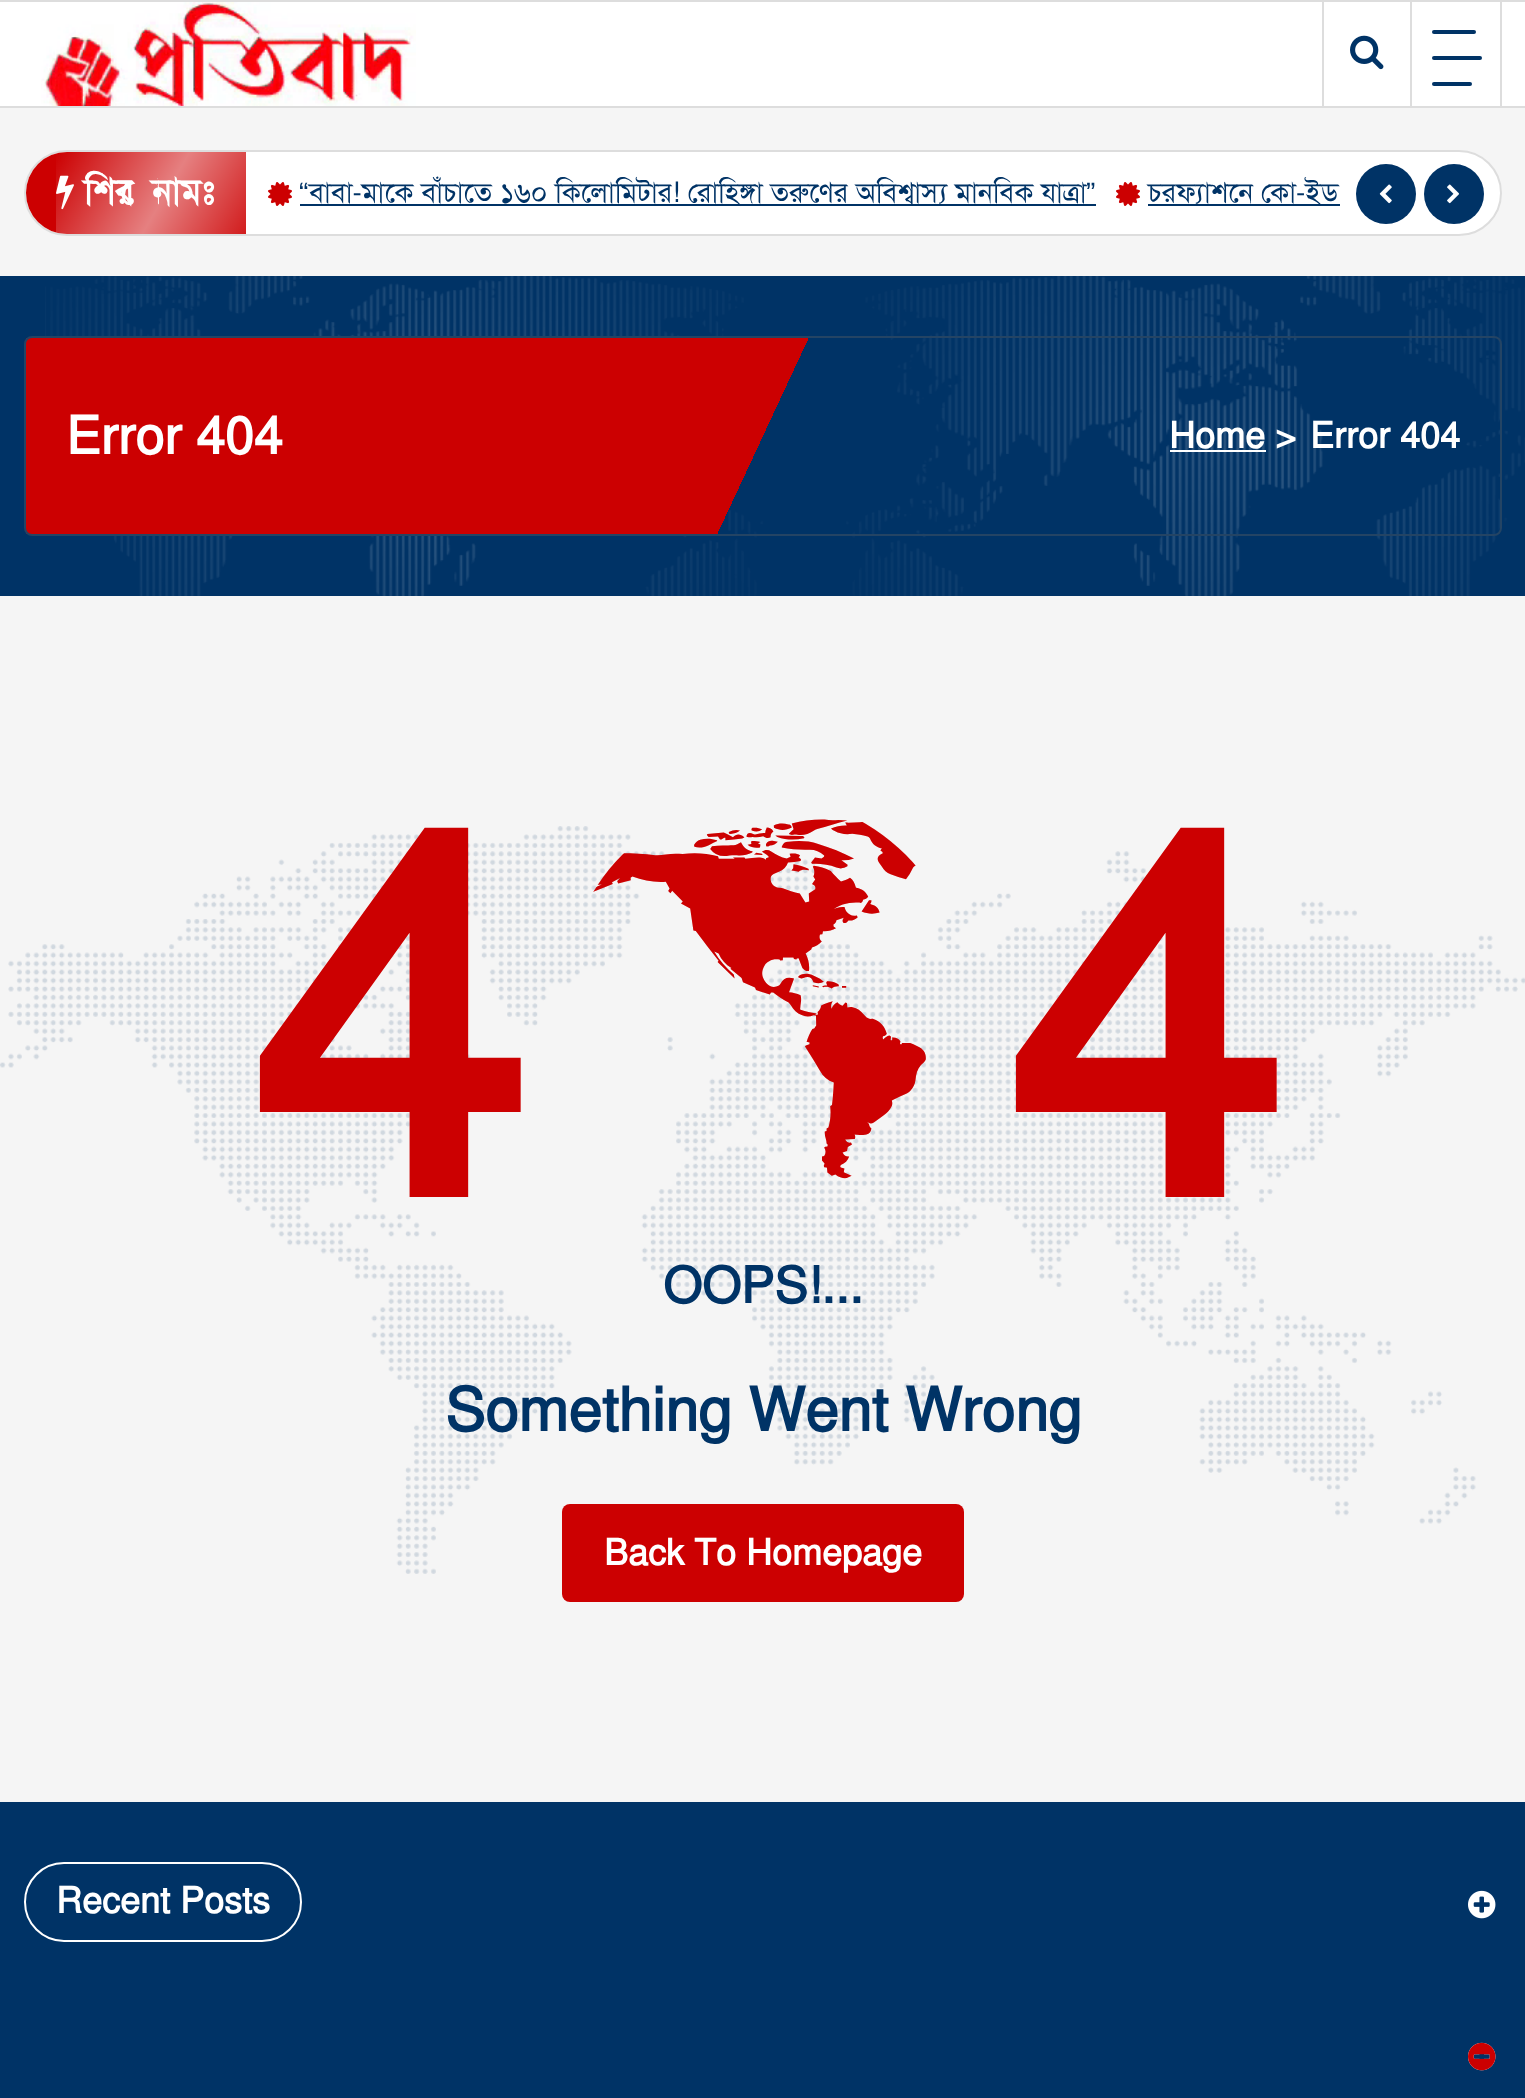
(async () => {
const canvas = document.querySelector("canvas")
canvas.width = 1525
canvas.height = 2098
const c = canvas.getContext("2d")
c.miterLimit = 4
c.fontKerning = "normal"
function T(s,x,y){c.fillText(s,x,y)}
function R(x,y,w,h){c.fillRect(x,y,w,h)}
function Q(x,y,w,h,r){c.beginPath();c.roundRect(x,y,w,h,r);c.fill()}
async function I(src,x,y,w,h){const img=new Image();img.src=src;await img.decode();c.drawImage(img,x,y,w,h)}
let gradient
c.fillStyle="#f5f5f5"
R(0,0,1525,2098)
c.fillStyle="#fff"
R(0,2,1525,104)
c.fillStyle="#ddd"
R(0,0,1525,2)
R(0,106,1525,2)
await I("1.png",41,2,375,104)
R(1410,2,2,104)
R(1322,2,2,104)
await I("2.png",1350,35,34,35)
R(1500,2,2,104)
c.fillStyle="#036"
Q(1432,30,44,4,2)
Q(1432,56,50,4,2)
Q(1432,82,40,4,2)
c.fillStyle="#fff"
c.beginPath()
c.roundRect(25,151,1476,84,42)
c.fill()
c.strokeStyle="#ddd"
c.lineWidth=2
c.stroke()
c.fillStyle="#cc0001"
c.beginPath()
c.roundRect(26,152,220,82,[41,0,0,41])
c.fill()
await I("3.png",56,175,18,35)
c.font="bold 36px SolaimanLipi"
c.fillStyle="#fff"
T("শিরোনামঃ",84,204)
c.save()
c.beginPath()
c.roundRect(26,152,1474,82,41)
c.clip()
gradient = c.createLinearGradient(66,135,266,251)
gradient.addColorStop(0,"#ffffff00")
gradient.addColorStop(.5,"#ffffff80")
gradient.addColorStop(1,"#ffffff00")
c.fillStyle = gradient
R(56,152,190,82)
c.restore()
await I("4.png",268,182,24,24)
c.font="28px Liberation Sans"
c.fillStyle="#036"
T("“",299,202)
R(300,204,796,2)
c.font="28px SolaimanLipi"
T("বাবা-মাকে বাঁচাতে ১৬০ কিলোমিটার! রোহিঙ্গা তরুণের অবিশ্বাস্য মানবিক যাত্রা",309,202)
c.font="28px Liberation Sans"
T("”",1086,202)
await I("4.png",1116,182,24,24)
R(1148,204,192,2)
c.font="28px SolaimanLipi"
T("চরফ্যাশনে কো-ইড",1148,202)
c.beginPath()
c.arc(1386,194,30,0,7)
c.fill()
await I("5.png",1379,184,13,20)
c.beginPath()
c.arc(1454,194,30,0,7)
c.fill()
await I("6.png",1447,184,12,20)
R(0,276,1525,320)
await I("7.png",45,276,1480,320)
gradient = c.createLinearGradient(120,136,1406,736)
gradient.addColorStop(.5,"#cc0001")
gradient.addColorStop(.5,"#cc000100")
c.fillStyle = gradient
R(26,338,783,196)
c.beginPath()
c.roundRect(25,337,1476,198,7)
c.strokeStyle="#244464"
c.stroke()
c.font="bold 52px SolaimanLipi"
c.fillStyle="#fff"
T("Error 404",66,454)
c.font="bold 36px SolaimanLipi"
T("Home >",1169,448)
R(1170,450,96,2)
T("Error 404",1310,448)
await I("8.png",0,826,1525,748)
c.font="bold 500px SolaimanLipi"
c.fillStyle="#cc0001"
T("4",246,1197)
await I("9.png",593,819,333,360)
await I("10.png",593,819,333,360)
T("4",1002,1197)
c.font="bold 50px SolaimanLipi"
c.fillStyle="#036"
T("OOPS!...",663,1303)
c.font="bold 60px SolaimanLipi"
T("Something Went Wrong",445,1431)
c.fillStyle="#cc0001"
Q(562,1504,402,98,8)
c.font="bold 36px SolaimanLipi"
c.fillStyle="#fff"
T("Back To Homepage",604,1565)
c.fillStyle="#036"
R(0,1802,1525,296)
c.beginPath()
c.roundRect(25,1863,276,78,39)
c.strokeStyle="#fff"
c.stroke()
c.fillStyle="#fff"
T("Recent Posts",56,1913)
await I("11.png",1468,1890,28,29)
await I("11.png",1468,2042,28,29)
await I("12.png",1468,2042,28,29)
})()
